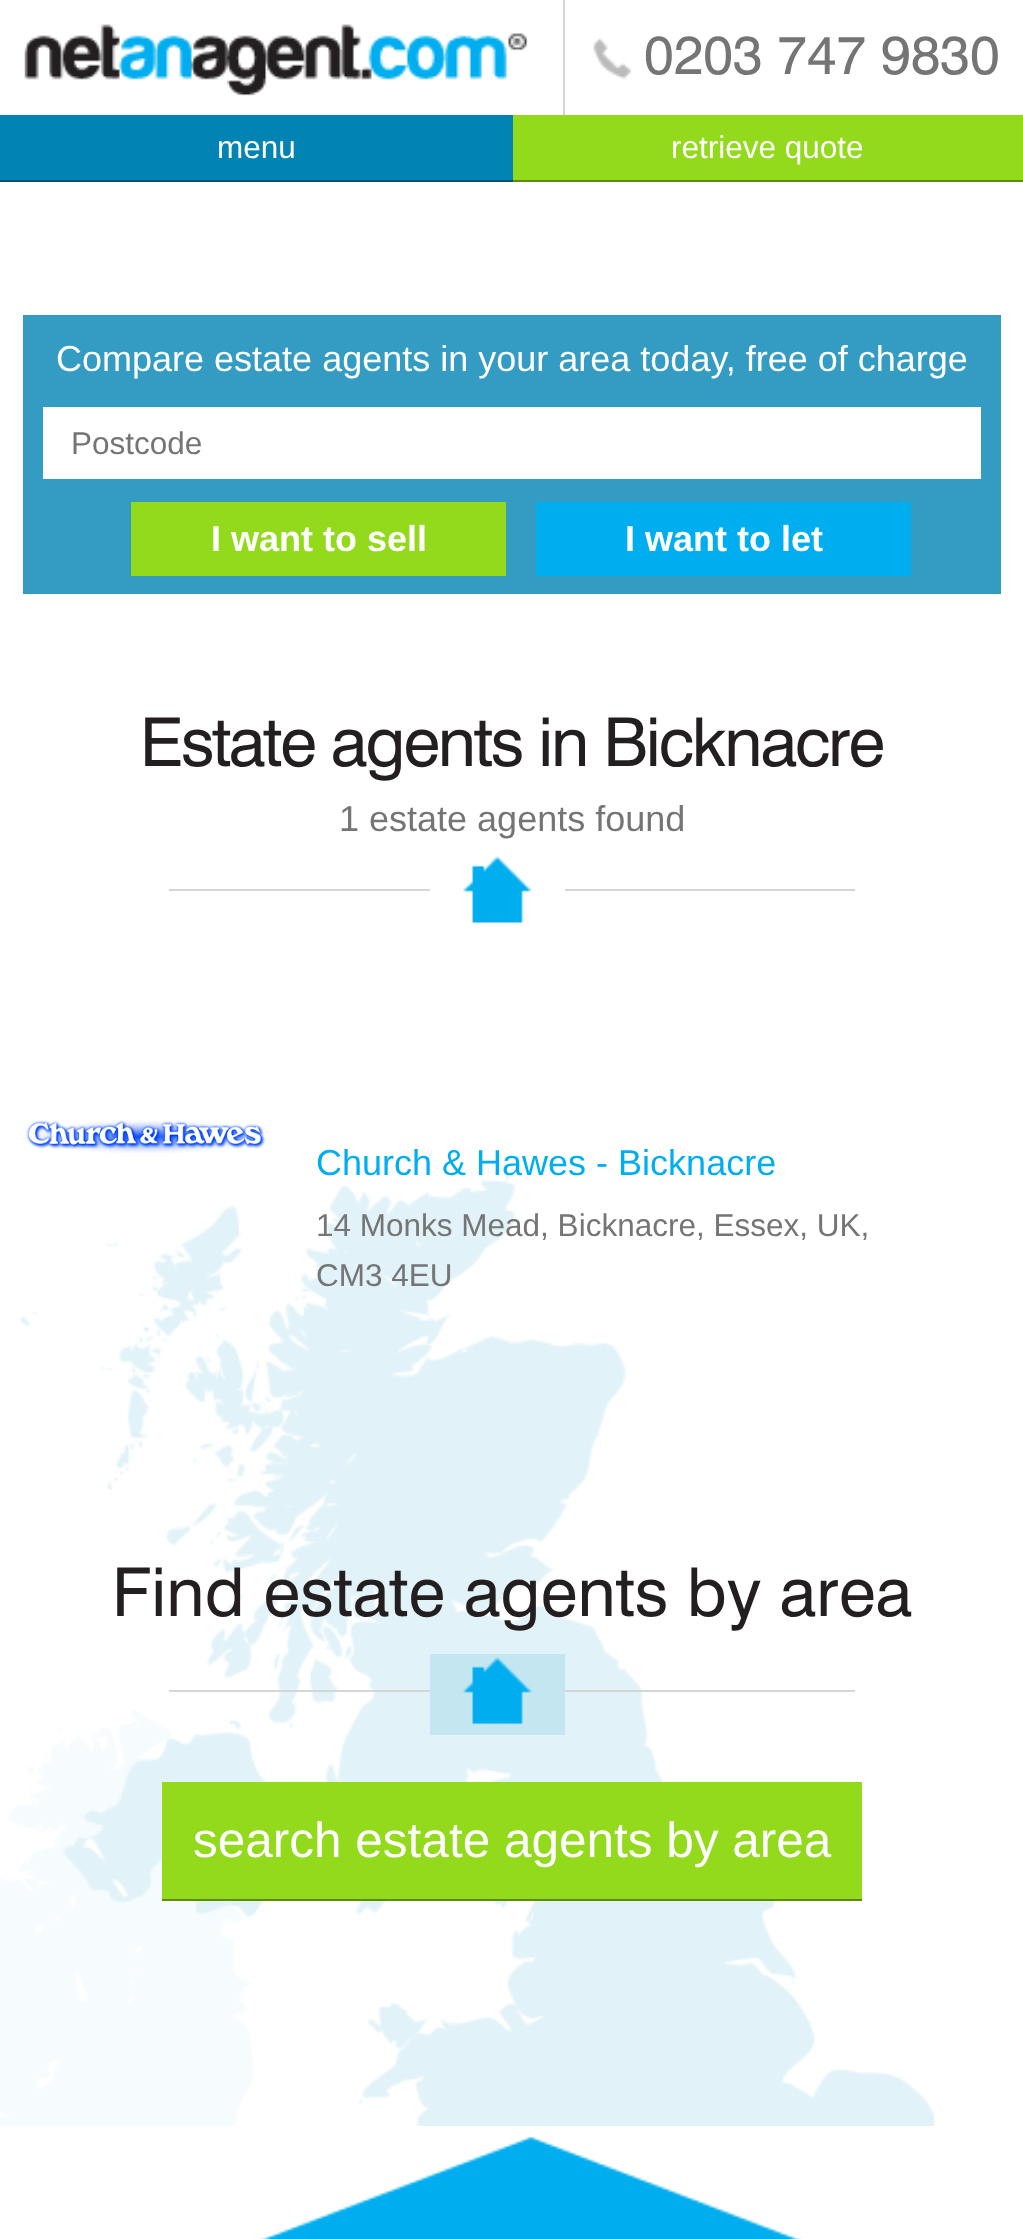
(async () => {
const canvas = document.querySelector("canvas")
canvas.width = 1023
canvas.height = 2239
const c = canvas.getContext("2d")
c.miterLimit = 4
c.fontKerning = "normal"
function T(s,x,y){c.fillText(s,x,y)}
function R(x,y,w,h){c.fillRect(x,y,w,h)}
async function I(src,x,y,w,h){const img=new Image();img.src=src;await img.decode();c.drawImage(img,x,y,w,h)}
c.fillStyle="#fff"
R(0,0,1023,2239)
await I("1.png",24,24,504,72)
await I("2.png",593,38,40,42)
c.fillStyle="#d5d5d5"
R(563,0,2,115)
c.font="54px 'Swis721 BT'"
c.fillStyle="#757575"
T("0203 747 9830",644,74)
c.fillStyle="#0183b3"
R(0,115,513,65)
c.fillStyle="#00506d"
R(0,180,513,2)
c.font="31.5px Liberation Sans"
c.fillStyle="#fff"
T("menu",217,158)
c.fillStyle="#93d91c"
R(513,115,510,65)
c.fillStyle="#5d8a11"
R(513,180,510,2)
c.fillStyle="#fff"
T("retrieve quote",671,158)
c.fillStyle="#349cc2"
R(23,315,978,279)
c.font="36px Liberation Sans"
c.fillStyle="#fff"
T("Compare estate agents in your area today, free of charge",56,371)
R(43,407,938,72)
c.font="31.5px Liberation Sans"
c.fillStyle="#757575"
T("Postcode",71,454)
c.fillStyle="#93d91c"
R(131,502,375,74)
c.font="bold 36px Liberation Sans"
c.fillStyle="#fff"
T("I want to sell",211,551)
c.fillStyle="#00aeef"
R(536,502,375,74)
c.fillStyle="#fff"
T("I want to let",625,551)
c.letterSpacing="-2.25px"
c.font="67.5px 'Swis721 BT'"
c.fillStyle="#231f20"
T("Estate agents in Bicknacre",140,766)
c.letterSpacing="0px"
c.font="36px Liberation Sans"
c.fillStyle="#757575"
T("1 estate agents found",339,831)
c.fillStyle="#d5d5d5"
R(169,889,686,2)
c.fillStyle="#fff"
R(430,889,135,2)
await I("3.png",463,856,69,68)
await I("4.png",0,1027,935,1099)
await I("5.png",25,1120,241,33)
c.fillStyle="#00aeef"
T("Church & Hawes - Bicknacre",316,1175)
c.font="31.5px Liberation Sans"
c.fillStyle="#757575"
T("14 Monks Mead, Bicknacre, Essex, UK,",316,1236)
T("CM3 4EU",316,1286)
c.font="67.5px 'Swis721 BT'"
c.fillStyle="#231f20"
T("Find estate agents by area",112,1616)
c.fillStyle="#d5d5d5"
R(169,1690,686,2)
c.fillStyle="#c3e6f0"
R(430,1654,135,81)
await I("6.png",463,1657,69,68)
c.fillStyle="#93d91c"
R(162,1782,700,117)
c.fillStyle="#5d8a11"
R(162,1899,700,2)
c.font="49.5px Liberation Sans"
c.fillStyle="#fff"
T("search estate agents by area",193,1857)
await I("7.png",259,2137,543,102)
})()
